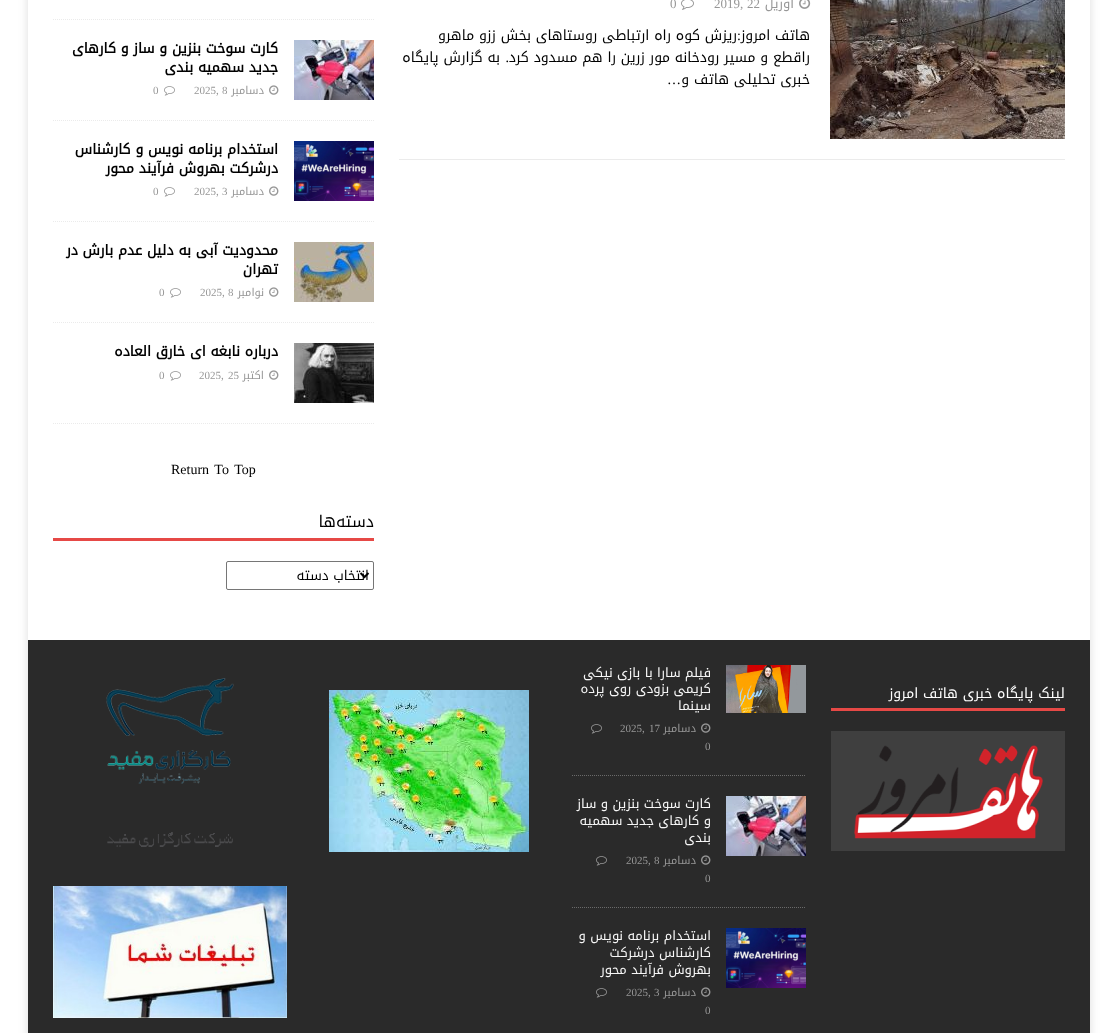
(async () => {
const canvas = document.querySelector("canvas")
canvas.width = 1118
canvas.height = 1033
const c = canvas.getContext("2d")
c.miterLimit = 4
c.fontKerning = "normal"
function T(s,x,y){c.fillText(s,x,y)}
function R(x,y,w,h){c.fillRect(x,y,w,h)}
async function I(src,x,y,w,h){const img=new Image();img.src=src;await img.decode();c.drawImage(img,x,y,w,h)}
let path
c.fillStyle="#fff"
R(0,0,1118,1033)
c.save()
path = new Path2D("M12 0h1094v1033h-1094zm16-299h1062v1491h-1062z")
c.clip(path,"evenodd")
c.fillStyle="#3232322b"
c.filter="blur(5px)"
c.beginPath()
c.rect(28,-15,1062,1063)
c.fill()
c.filter="none"
c.restore()
c.fillStyle="#ebebeb"
R(399,159,666,1)
await I("1.png",830,0,235,139)
await I("2.png",799,0,12,9)
c.direction="rtl"
c.font="13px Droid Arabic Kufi"
c.fillStyle="#979797"
T("آوریل",794,8)
c.direction="ltr"
c.font="13px Liberation Serif"
T("22",747,8)
T("2019,",714,8)
await I("3.png",681,0,13,10)
T("0",670,8)
c.direction="rtl"
c.font="14px Droid Arabic Kufi"
c.fillStyle="#000"
T("هاتف امروز",810,40)
c.font="14px Liberation Serif"
T(":",741,40)
c.font="14px Droid Arabic Kufi"
T("ریزش کوه راه ارتباطی روستاهای بخش ززو ماهرو",737,40)
T("راقطع و مسیر رودخانه مور زرین را هم مسدود کرد",810,62)
c.font="14px Liberation Serif"
T(".",509,62)
c.font="14px Droid Arabic Kufi"
T("به گزارش پایگاه",500,62)
T("خبری تحلیلی هاتف",810,84)
T("و",689,84)
c.font="14px Liberation Serif"
T("…",681,84)
path = new Path2D("M53 19.5h321")
c.strokeStyle="#ebebeb"
c.setLineDash([1,1])
c.stroke(path)
path = new Path2D("M53 120.5h321")
c.stroke(path)
await I("4.png",294,40,80,60)
c.font="bold 14px Droid Arabic Kufi"
T("کارت سوخت بنزین و ساز و کارهای",278,53)
T("جدید سهمیه بندی",278,72)
await I("5.png",269,85,10,10)
c.font="11px Droid Arabic Kufi"
c.fillStyle="#979797"
T("دسامبر",264,94)
c.direction="ltr"
c.font="11px Liberation Serif"
T("8",222,94)
T("2025,",194,94)
await I("6.png",164,86,11,10)
T("0",153,94)
path = new Path2D("M53 221.5h321")
c.stroke(path)
await I("7.png",294,141,80,60)
c.direction="rtl"
c.font="bold 14px Droid Arabic Kufi"
c.fillStyle="#000"
T("استخدام برنامه نویس و کارشناس",278,154)
T("درشرکت بهروش فرآیند محور",278,173)
await I("5.png",269,186,10,10)
c.font="11px Droid Arabic Kufi"
c.fillStyle="#979797"
T("دسامبر",264,195)
c.direction="ltr"
c.font="11px Liberation Serif"
T("3",222,195)
T("2025,",194,195)
await I("6.png",164,187,11,10)
T("0",153,195)
path = new Path2D("M53 322.5h321")
c.stroke(path)
await I("8.png",294,242,80,60)
c.direction="rtl"
c.font="bold 14px Droid Arabic Kufi"
c.fillStyle="#000"
T("محدودیت آبی به دلیل عدم بارش در",278,255)
T("تهران",278,274)
await I("5.png",269,287,10,10)
c.font="11px Droid Arabic Kufi"
c.fillStyle="#979797"
T("نوامبر",264,296)
c.direction="ltr"
c.font="11px Liberation Serif"
T("8",228,296)
T("2025,",200,296)
await I("6.png",170,288,11,10)
T("0",159,296)
path = new Path2D("M53 423.5h321")
c.stroke(path)
await I("9.png",294,343,80,60)
c.direction="rtl"
c.font="bold 14px Droid Arabic Kufi"
c.fillStyle="#000"
T("درباره نابغه ای خارق العاده",278,356)
await I("5.png",269,370,10,10)
c.font="11px Droid Arabic Kufi"
c.fillStyle="#979797"
T("اکتبر",264,379)
c.direction="ltr"
c.font="11px Liberation Serif"
T("25",228,379)
T("2025,",199,379)
await I("6.png",170,371,11,10)
T("0",159,379)
c.wordSpacing="2px"
c.font="14px Liberation Serif"
c.fillStyle="#000"
T("Return To Top",171,474)
c.fillStyle="#e64946"
R(53,538,321,3)
c.wordSpacing="0px"
c.direction="rtl"
c.font="16px Droid Arabic Kufi"
c.fillStyle="#000"
T("دسته‌ها",374,527)
c.beginPath()
c.roundRect(226.5,561.5,147,28,1.5)
c.strokeStyle="#767676"
c.setLineDash([])
c.stroke()
path = new Path2D("M360.5 573l4 4l4-4")
c.strokeStyle="#000"
c.lineWidth=2
c.stroke(path)
c.font="13.5px Droid Arabic Kufi"
T("انتخاب دسته",369,580)
c.fillStyle="#2a2a2a"
R(28,640,1062,393)
c.fillStyle="#e64946"
R(831,708,234,3)
c.font="14px Droid Arabic Kufi"
c.fillStyle="#fff"
T("لینک پایگاه خبری هاتف امروز",1065,698)
c.fillStyle="#3f3f3f"
R(831,731,234,120)
await I("10.png",854,745,189,94)
path = new Path2D("M572 775.5h234")
c.strokeStyle="#6a6a6a"
c.lineWidth=1
c.setLineDash([1,1])
c.stroke(path)
await I("11.png",726,665,80,48)
c.font="13px Droid Arabic Kufi"
c.fillStyle="#f7f7f7"
T("فیلم سارا با بازی نیکی",711,677)
T("کریمی بزودی روی پرده",711,693)
T("سینما",711,710)
await I("12.png",701,723,10,10)
c.font="11px Droid Arabic Kufi"
c.fillStyle="#979797"
T("دسامبر",696,732)
c.direction="ltr"
c.font="11px Liberation Serif"
T("17",649,732)
T("2025,",620,732)
await I("13.png",591,724,11,10)
T("0",705,750)
path = new Path2D("M572 907.5h234")
c.stroke(path)
await I("4.png",726,796,80,60)
c.direction="rtl"
c.font="13px Droid Arabic Kufi"
c.fillStyle="#f7f7f7"
T("کارت سوخت بنزین و ساز",711,808)
T("و کارهای جدید سهمیه",711,825)
T("بندی",711,842)
await I("12.png",701,855,10,10)
c.font="11px Droid Arabic Kufi"
c.fillStyle="#979797"
T("دسامبر",696,864)
c.direction="ltr"
c.font="11px Liberation Serif"
T("8",654,864)
T("2025,",626,864)
await I("13.png",596,856,11,10)
T("0",705,882)
await I("7.png",726,928,80,60)
c.direction="rtl"
c.font="13px Droid Arabic Kufi"
c.fillStyle="#f7f7f7"
T("استخدام برنامه نویس و",711,940)
T("کارشناس درشرکت",711,957)
T("بهروش فرآیند محور",711,974)
await I("12.png",701,987,10,10)
c.font="11px Droid Arabic Kufi"
c.fillStyle="#979797"
T("دسامبر",696,996)
c.direction="ltr"
c.font="11px Liberation Serif"
T("3",654,996)
T("2025,",626,996)
await I("13.png",596,988,11,10)
T("0",705,1014)
await I("14.png",329,690,200,162)
await I("15.png",106,678,128,169)
await I("16.png",53,886,234,132)
})()
